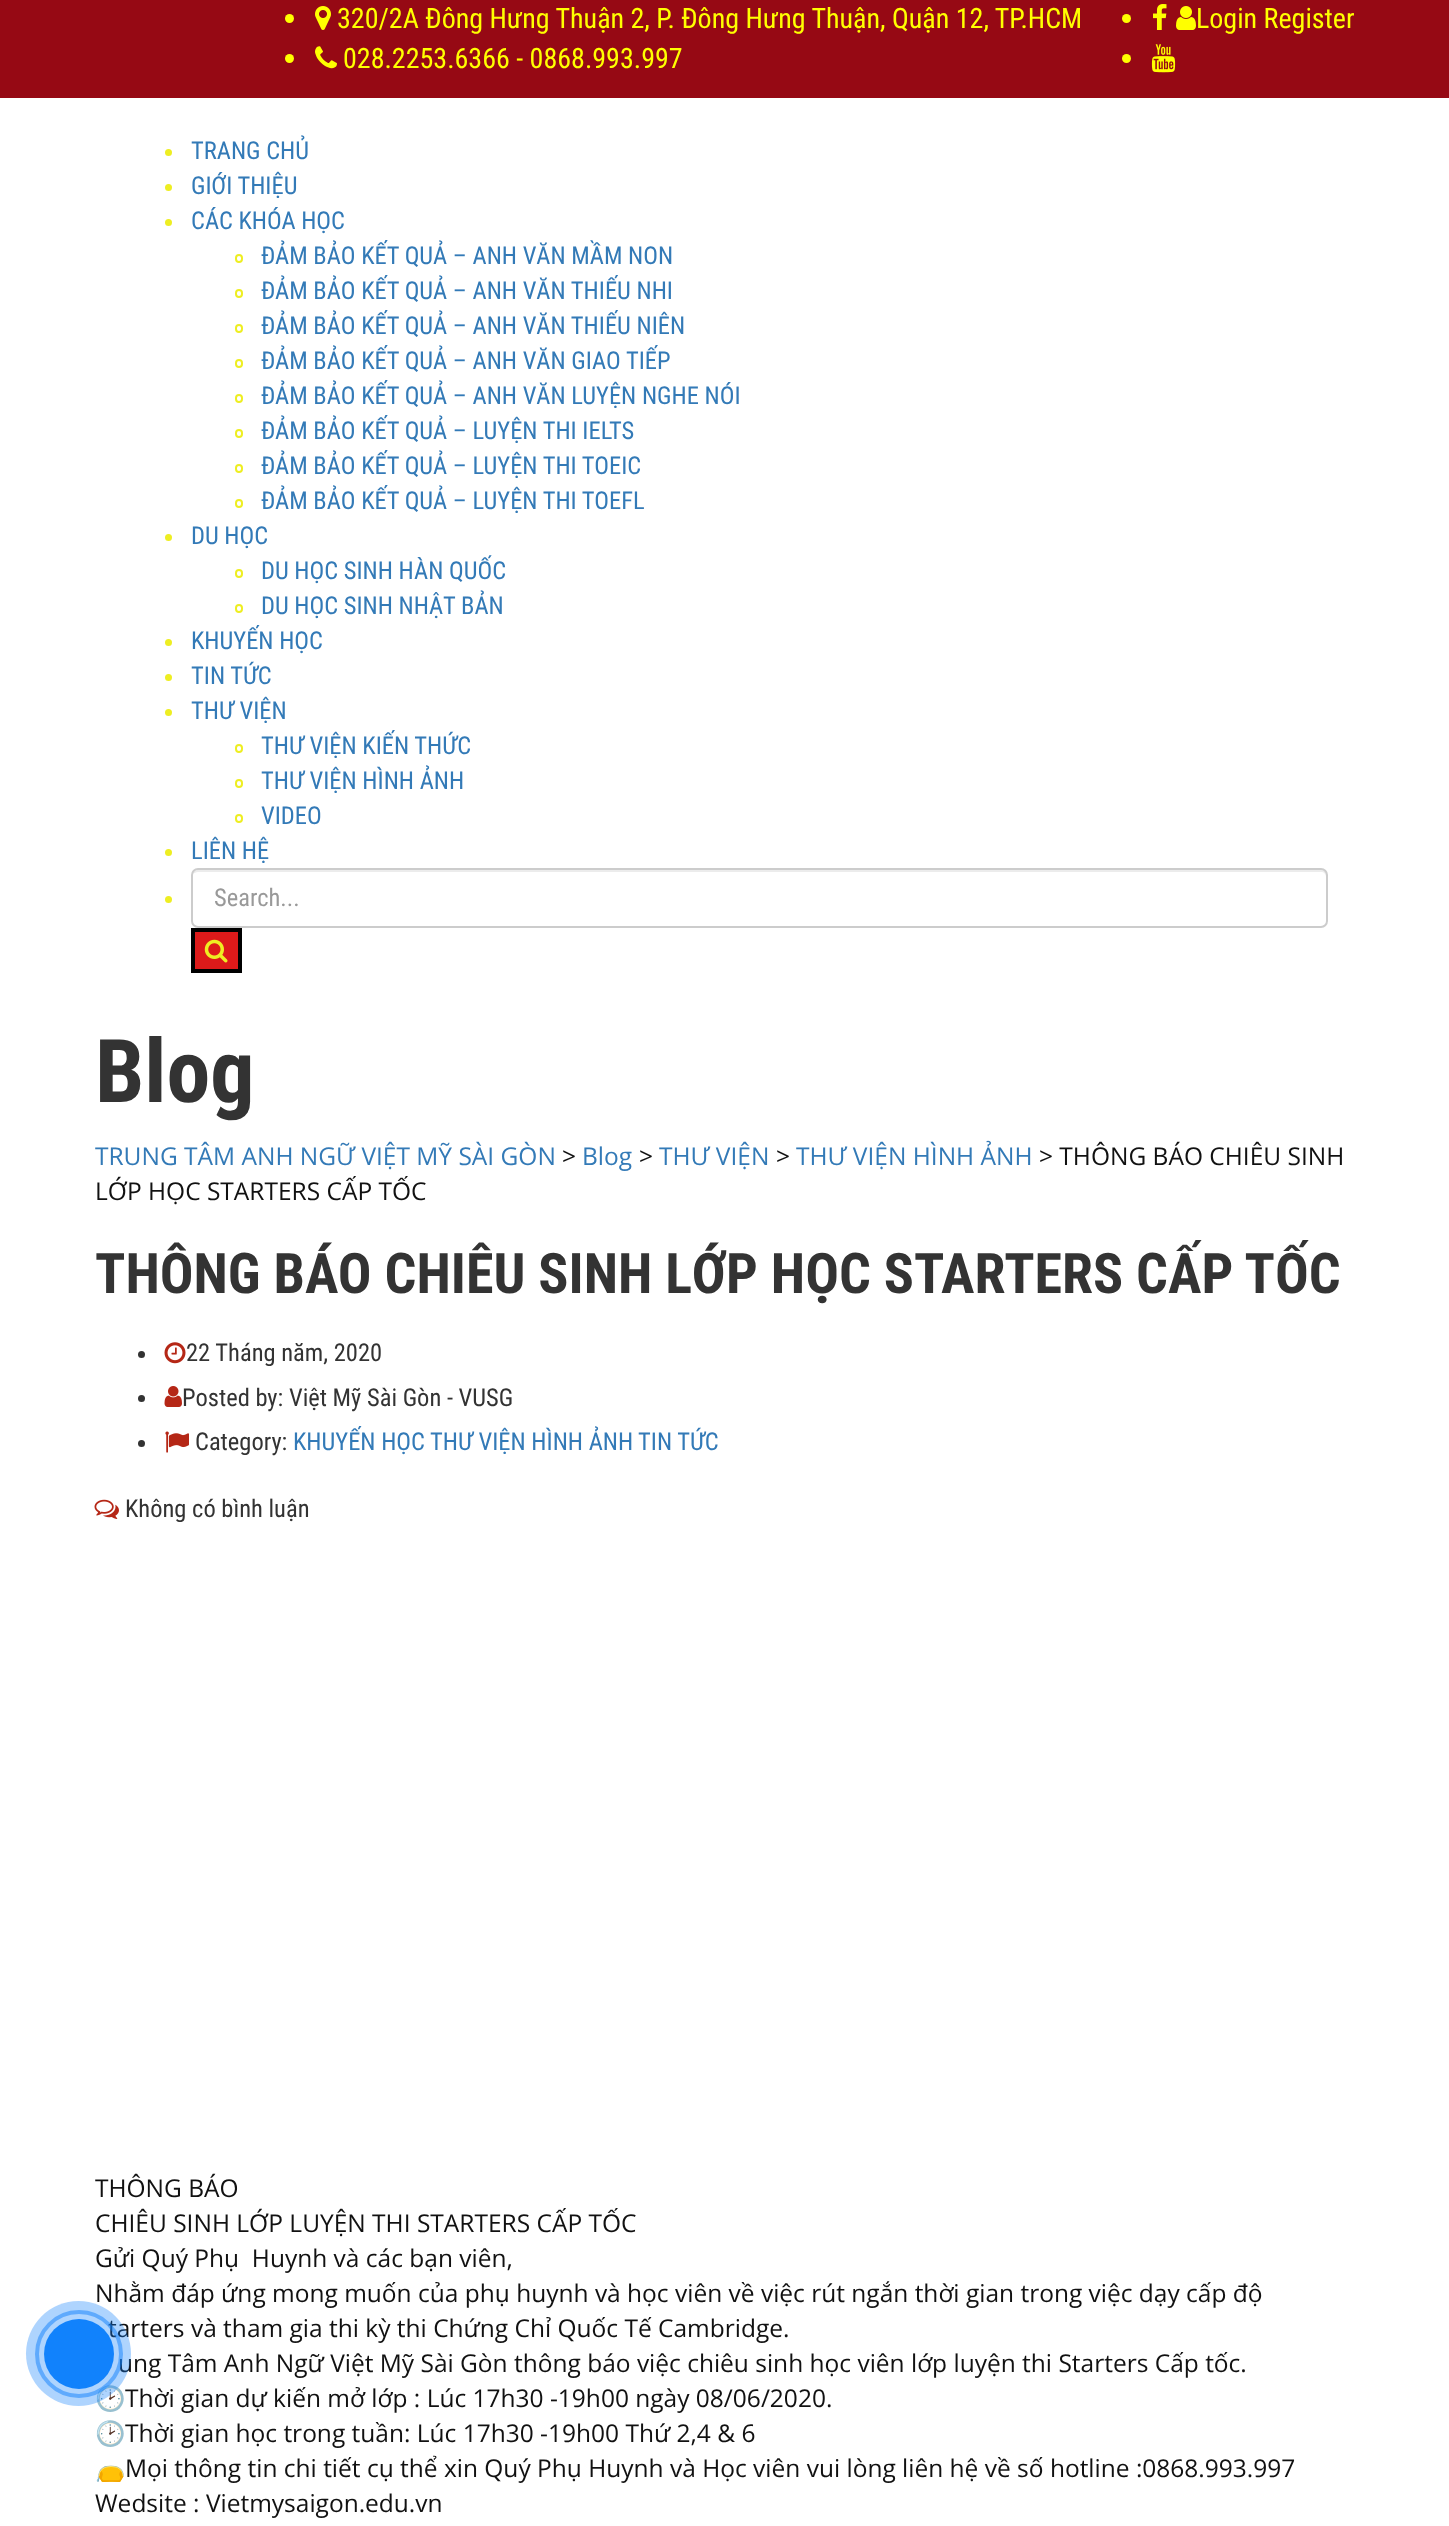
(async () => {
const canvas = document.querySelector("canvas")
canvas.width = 1449
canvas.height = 2526
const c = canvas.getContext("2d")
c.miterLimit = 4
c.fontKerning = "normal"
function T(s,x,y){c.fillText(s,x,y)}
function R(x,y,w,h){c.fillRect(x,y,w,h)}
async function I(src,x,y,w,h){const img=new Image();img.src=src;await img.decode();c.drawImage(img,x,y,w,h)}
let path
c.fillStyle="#fff"
R(0,0,1449,2526)
c.font="24.5px Open Sans"
c.fillStyle="#111"
T("tarters và tham gia thi kỳ thi Chứng Chỉ Quốc Tế Cambridge.",108,2337)
T("ung Tâm Anh Ngữ Việt Mỹ Sài Gòn thông báo việc chiêu sinh học viên lớp luyện thi Starters Cấp tốc.",118,2372)
c.font="24.5px Noto Color Emoji"
T("🕑",95,2407)
c.beginPath()
c.arc(79,2354,42,0,7)
c.strokeStyle="#1182fc80"
c.lineWidth=4
c.stroke()
c.font="24.5px Open Sans"
T("Nhằm đáp ứng mong muốn của phụ huynh và học viên về việc rút ngắn thời gian trong việc dạy cấp độ",95,2302)
T("Thời gian dự kiến mở lớp : Lúc 17h30 -19h00 ngày 08/06/2020.",125,2407)
c.fillStyle="#1182fc57"
c.beginPath()
c.arc(78.5,2353.5,52.5,0,7)
c.fill()
c.fillStyle="#1182fc"
c.beginPath()
c.arc(79,2354,35,0,7)
c.fill()
c.fillStyle="#960914"
R(0,0,1449,98)
c.fillStyle="#ff0"
c.beginPath()
c.arc(289.5,18.5,4.5,0,7)
c.fill()
await I("1.png",315,6,16,24)
c.font="28px Roboto Condensed"
T("320/2A Đông Hưng Thuận 2, P. Đông Hưng Thuận, Quận 12, TP.HCM",337,28)
c.beginPath()
c.arc(289.5,58.5,4.5,0,7)
c.fill()
await I("2.png",315,46,22,23)
T("028.2253.6366 - 0868.993.997",343,68)
c.beginPath()
c.arc(1126.5,18.5,4.5,0,7)
c.fill()
await I("3.png",1153,4,14,26)
c.beginPath()
c.arc(1126.5,58.5,4.5,0,7)
c.fill()
await I("4.png",1151,44,25,29)
await I("5.png",1176,6,20,24)
T("Login Register",1196,28)
c.fillStyle="#ee2"
c.beginPath()
c.arc(168.5,152.5,3.5,0,7)
c.fill()
c.font="24.5px Roboto Condensed"
c.fillStyle="#337ab7"
T("TRANG CHỦ",191,159)
c.fillStyle="#ee2"
c.beginPath()
c.arc(168.5,187.5,3.5,0,7)
c.fill()
c.fillStyle="#337ab7"
T("GIỚI THIỆU",191,194)
c.fillStyle="#ee2"
c.beginPath()
c.arc(168.5,222.5,3.5,0,7)
c.fill()
c.fillStyle="#337ab7"
T("CÁC KHÓA HỌC",191,229)
c.beginPath()
c.roundRect(236,255,6,7,3)
c.strokeStyle="#ee2"
c.lineWidth=2
c.stroke()
T("ĐẢM BẢO KẾT QUẢ – ANH VĂN MẦM NON",261,264)
c.beginPath()
c.roundRect(236,290,6,7,3)
c.stroke()
T("ĐẢM BẢO KẾT QUẢ – ANH VĂN THIẾU NHI",261,299)
c.beginPath()
c.roundRect(236,325,6,7,3)
c.stroke()
T("ĐẢM BẢO KẾT QUẢ – ANH VĂN THIẾU NIÊN",261,334)
c.beginPath()
c.roundRect(236,360,6,7,3)
c.stroke()
T("ĐẢM BẢO KẾT QUẢ – ANH VĂN GIAO TIẾP",261,369)
c.beginPath()
c.roundRect(236,395,6,7,3)
c.stroke()
T("ĐẢM BẢO KẾT QUẢ – ANH VĂN LUYỆN NGHE NÓI",261,404)
c.beginPath()
c.roundRect(236,430,6,7,3)
c.stroke()
T("ĐẢM BẢO KẾT QUẢ – LUYỆN THI IELTS",261,439)
c.beginPath()
c.roundRect(236,465,6,7,3)
c.stroke()
T("ĐẢM BẢO KẾT QUẢ – LUYỆN THI TOEIC",261,474)
c.beginPath()
c.roundRect(236,500,6,7,3)
c.stroke()
T("ĐẢM BẢO KẾT QUẢ – LUYỆN THI TOEFL",261,509)
c.fillStyle="#ee2"
c.beginPath()
c.arc(168.5,537.5,3.5,0,7)
c.fill()
c.fillStyle="#337ab7"
T("DU HỌC",191,544)
c.beginPath()
c.roundRect(236,570,6,7,3)
c.stroke()
T("DU HỌC SINH HÀN QUỐC",261,579)
c.beginPath()
c.roundRect(236,605,6,7,3)
c.stroke()
T("DU HỌC SINH NHẬT BẢN",261,614)
c.fillStyle="#ee2"
c.beginPath()
c.arc(168.5,642.5,3.5,0,7)
c.fill()
c.fillStyle="#337ab7"
T("KHUYẾN HỌC",191,649)
c.fillStyle="#ee2"
c.beginPath()
c.arc(168.5,677.5,3.5,0,7)
c.fill()
c.fillStyle="#337ab7"
T("TIN TỨC",191,684)
c.fillStyle="#ee2"
c.beginPath()
c.arc(168.5,712.5,3.5,0,7)
c.fill()
c.fillStyle="#337ab7"
T("THƯ VIỆN",191,719)
c.beginPath()
c.roundRect(236,745,6,7,3)
c.stroke()
T("THƯ VIỆN KIẾN THỨC",261,754)
c.beginPath()
c.roundRect(236,780,6,7,3)
c.stroke()
T("THƯ VIỆN HÌNH ẢNH",261,789)
c.beginPath()
c.roundRect(236,815,6,7,3)
c.stroke()
T("VIDEO",261,824)
c.fillStyle="#ee2"
c.beginPath()
c.arc(168.5,852.5,3.5,0,7)
c.fill()
c.fillStyle="#337ab7"
T("LIÊN HỆ",191,859)
c.fillStyle="#ee2"
c.beginPath()
c.arc(168.5,899.5,3.5,0,7)
c.fill()
c.fillStyle="#ececec"
path = new Path2D("M198 872h1123c3 0 5 2 5 5v45v3c0-1 1-3 1-4v-46c0-3-2-5-5-5h-1124c-2 0-5 2-5 4c1-1 3-2 5-2z")
c.fill(path)
c.beginPath()
c.roundRect(192,869,1135,58,6)
c.strokeStyle="#ccc"
c.stroke()
c.fillStyle="#999"
T("Search...",214,906)
c.fillStyle="#dd1a1a"
c.beginPath()
c.rect(193,930,47,41)
c.fill()
c.strokeStyle="#000"
c.lineWidth=4
c.stroke()
await I("6.png",204,939,24,24)
c.font="bold 88px Roboto Condensed"
c.fillStyle="#333"
T("Blog",95,1102)
c.font="24.5px Open Sans"
c.fillStyle="#337ab7"
T("TRUNG TÂM ANH NGỮ VIỆT MỸ SÀI GÒN",95,1165)
c.fillStyle="#111"
T(">",562,1165)
c.fillStyle="#337ab7"
T("Blog",582,1165)
c.fillStyle="#111"
T(">",639,1165)
c.fillStyle="#337ab7"
T("THƯ VIỆN",659,1165)
c.fillStyle="#111"
T(">",776,1165)
c.fillStyle="#337ab7"
T("THƯ VIỆN HÌNH ẢNH",796,1165)
c.fillStyle="#111"
T("> THÔNG BÁO CHIÊU SINH",1039,1165)
T("LỚP HỌC STARTERS CẤP TỐC",95,1200)
c.font="bold 56px Roboto Condensed"
c.fillStyle="#333"
T("THÔNG BÁO CHIÊU SINH LỚP HỌC STARTERS CẤP TỐC",95,1293)
c.beginPath()
c.arc(141.5,1354.5,3.5,0,7)
c.fill()
await I("7.png",164,1342,22,22)
c.font="24.5px Roboto Condensed"
T("22 Tháng năm, 2020",186,1361)
c.beginPath()
c.arc(141.5,1398.5,3.5,0,7)
c.fill()
await I("8.png",164,1386,18,21)
T("Posted by: Việt Mỹ Sài Gòn - VUSG",182,1406)
c.beginPath()
c.arc(141.5,1443.5,3.5,0,7)
c.fill()
await I("9.png",165,1431,24,22)
T("Category:",195,1450)
c.fillStyle="#337ab7"
T("KHUYẾN HỌC",293,1450)
T("THƯ VIỆN HÌNH ẢNH",430,1450)
T("TIN TỨC",638,1450)
await I("10.png",94,1499,25,20)
c.fillStyle="#333"
T("Không có bình luận",125,1517)
c.font="24.5px Open Sans"
c.fillStyle="#111"
T("THÔNG BÁO",95,2197)
T("CHIÊU SINH LỚP LUYỆN THI STARTERS CẤP TỐC",95,2232)
T("Gửi Quý Phụ  Huynh và các bạn viên,",95,2267)
c.font="24.5px Noto Color Emoji"
T("🕑",95,2442)
c.font="24.5px Open Sans"
T("Thời gian học trong tuần: Lúc 17h30 -19h00 Thứ 2,4 & 6",125,2442)
c.font="24.5px Noto Color Emoji"
T("👝",95,2477)
c.font="24.5px Open Sans"
T("Mọi thông tin chi tiết cụ thể xin Quý Phụ Huynh và Học viên vui lòng liên hệ về số hotline :0868.993.997",125,2477)
T("Wedsite : Vietmysaigon.edu.vn",95,2512)
})()
